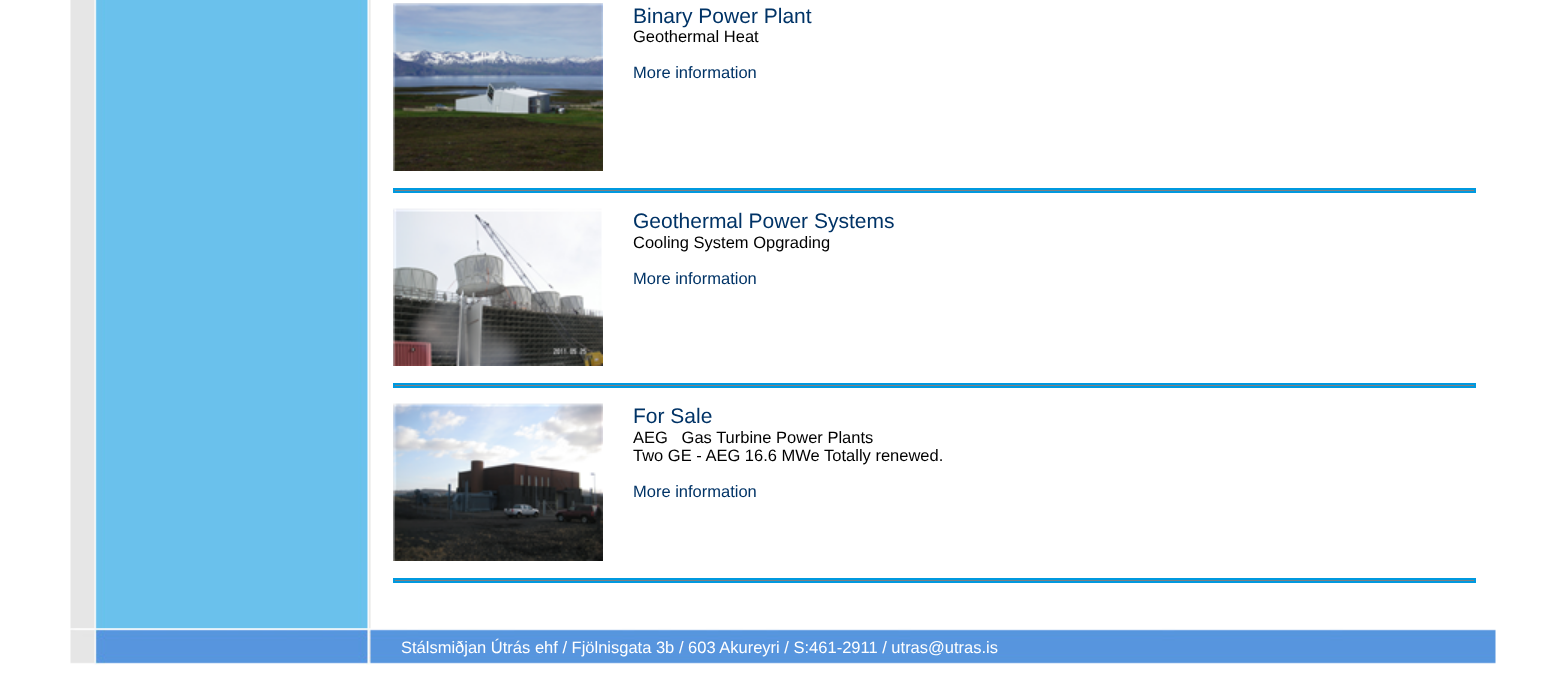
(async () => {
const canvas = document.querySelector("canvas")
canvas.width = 1565
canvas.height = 676
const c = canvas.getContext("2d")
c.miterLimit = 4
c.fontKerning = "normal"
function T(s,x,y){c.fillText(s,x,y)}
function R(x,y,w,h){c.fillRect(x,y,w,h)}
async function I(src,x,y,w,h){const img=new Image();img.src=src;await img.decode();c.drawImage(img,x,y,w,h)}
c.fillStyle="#fff"
R(0,0,1565,676)
await I("1.png",70,0,301,629)
await I("2.png",393,3,210,168)
c.font="21px Liberation Sans"
c.fillStyle="#036"
T("Binary Power Plant",633,23)
c.font="16.5px Liberation Sans"
c.fillStyle="#000"
T("Geothermal Heat",633,42)
c.fillStyle="#036"
T("More information",633,78)
c.fillStyle="#808080"
c.beginPath()
c.rect(394,189,1081,3)
c.fill()
c.strokeStyle="#0099df"
c.lineWidth=2
c.stroke()
await I("3.png",393,208,210,158)
c.font="21px Liberation Sans"
c.fillStyle="#036"
T("Geothermal Power Systems",633,228)
c.font="16.5px Liberation Sans"
c.fillStyle="#000"
T("Cooling System Opgrading",633,248)
c.fillStyle="#036"
T("More information",633,284)
c.fillStyle="#808080"
c.beginPath()
c.rect(394,384,1081,3)
c.fill()
c.stroke()
await I("4.png",393,403,210,158)
c.font="21px Liberation Sans"
c.fillStyle="#036"
T("For Sale",633,423)
c.font="16.5px Liberation Sans"
c.fillStyle="#000"
T("AEG   Gas Turbine Power Plants",633,443)
T("Two GE - AEG 16.6 MWe Totally renewed.",633,461)
c.fillStyle="#036"
T("More information",633,497)
c.fillStyle="#808080"
c.beginPath()
c.rect(394,579,1081,3)
c.fill()
c.stroke()
await I("5.png",70,628,1426,37)
c.fillStyle="#fff"
T("Stálsmiðjan Útrás ehf / Fjölnisgata 3b / 603 Akureyri / S:461-2911 / utras@utras.is",401,653)
})()
